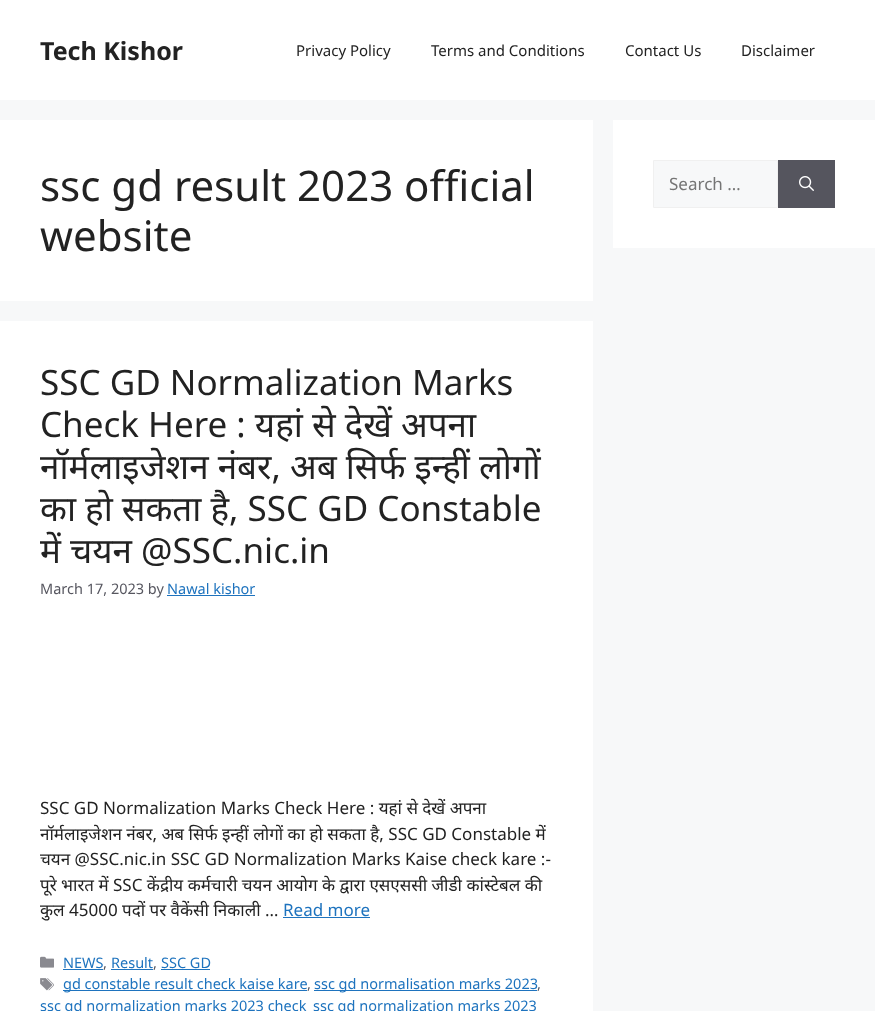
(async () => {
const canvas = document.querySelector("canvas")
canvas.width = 875
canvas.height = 1011
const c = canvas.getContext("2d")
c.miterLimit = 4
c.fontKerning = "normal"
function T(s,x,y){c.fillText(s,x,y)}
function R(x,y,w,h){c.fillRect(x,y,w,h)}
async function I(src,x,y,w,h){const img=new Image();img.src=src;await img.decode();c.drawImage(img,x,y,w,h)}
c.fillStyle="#f7f8f9"
R(0,0,875,1011)
c.fillStyle="#fff"
R(0,0,875,100)
c.font="bold 25px Noto Sans"
c.fillStyle="#222"
T("Tech Kishor",40,60)
c.font="15px Noto Sans"
T("Privacy Policy",296,56)
T("Terms and Conditions",431,56)
T("Contact Us",625,56)
T("Disclaimer",741,56)
c.fillStyle="#fff"
R(0,120,593,181)
c.font="42px Noto Sans"
c.fillStyle="#222"
T("ssc gd result 2023 official",40,201)
T("website",40,251)
c.fillStyle="#fff"
R(0,321,593,690)
c.font="35px Noto Sans"
c.fillStyle="#222"
T("SSC GD Normalization Marks",40,395)
T("Check Here : यहां से देखें अपना",40,437)
T("नॉर्मलाइजेशन नंबर, अब सिर्फ इन्हीं लोगों",40,479)
T("का हो सकता है, SSC GD Constable",40,521)
T("में चयन @SSC.nic.in",40,563)
c.font="14.5px Noto Sans"
c.fillStyle="#575760"
T("March 17, 2023 by",40,594)
c.fillStyle="#1e73be"
T("Nawal kishor",167,594)
R(167,595,88,1)
c.font="17px Noto Sans"
c.fillStyle="#222"
T("SSC GD Normalization Marks Check Here : यहां से देखें अपना",40,814)
T("नॉर्मलाइजेशन नंबर, अब सिर्फ इन्हीं लोगों का हो सकता है, SSC GD Constable में",40,840)
T("चयन @SSC.nic.in SSC GD Normalization Marks Kaise check kare :-",40,865)
T("पूरे भारत में SSC केंद्रीय कर्मचारी चयन आयोग के द्वारा एसएससी जीडी कांस्टेबल की",40,891)
T("कुल 45000 पदों पर वैकेंसी निकाली …",40,916)
c.fillStyle="#1e73be"
T("Read more",283,916)
R(283,917,87,1)
await I("1.png",40,956,14,12)
c.font="14.5px Noto Sans"
T("NEWS",63,968)
R(63,969,40,1)
c.fillStyle="#575760"
T(",",103,968)
c.fillStyle="#1e73be"
T("Result",111,968)
R(111,969,42,1)
c.fillStyle="#575760"
T(",",153,968)
c.fillStyle="#1e73be"
T("SSC GD",161,968)
R(161,969,49,1)
await I("2.png",40,978,14,13)
R(63,990,244,1)
T("gd constable result check kaise kare",63,989)
c.fillStyle="#575760"
T(",",307,989)
c.fillStyle="#1e73be"
R(314,990,223,1)
T("ssc gd normalisation marks 2023",314,989)
c.fillStyle="#575760"
T(",",537,989)
c.fillStyle="#1e73be"
T("ssc gd normalization marks 2023 check",40,1011)
T("ssc gd normalization marks 2023",313,1011)
c.fillStyle="#fff"
R(613,120,262,128)
c.fillStyle="#f7f8f9"
c.beginPath()
c.rect(653.5,160.5,124,47)
c.fill()
c.strokeStyle="#f0f0f0"
c.stroke()
c.font="17px Noto Sans"
c.fillStyle="#757575"
T("Search …",669,190)
c.fillStyle="#55555e"
R(778,160,57,48)
await I("3.png",799,176,15,15)
})()
